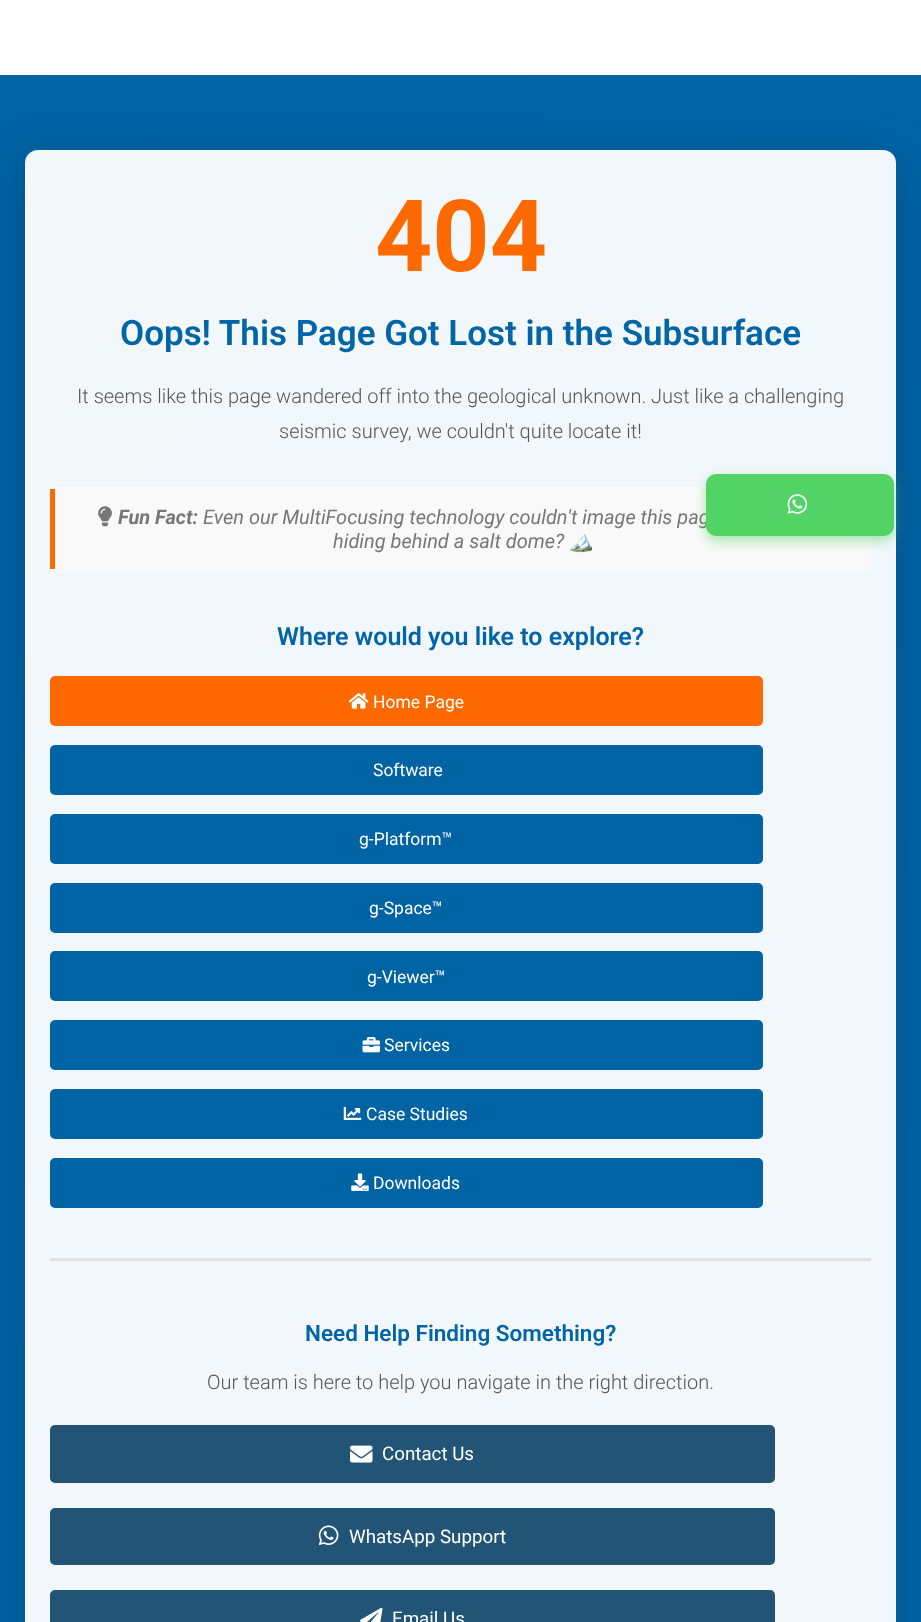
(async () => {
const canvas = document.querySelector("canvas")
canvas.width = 921
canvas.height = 1622
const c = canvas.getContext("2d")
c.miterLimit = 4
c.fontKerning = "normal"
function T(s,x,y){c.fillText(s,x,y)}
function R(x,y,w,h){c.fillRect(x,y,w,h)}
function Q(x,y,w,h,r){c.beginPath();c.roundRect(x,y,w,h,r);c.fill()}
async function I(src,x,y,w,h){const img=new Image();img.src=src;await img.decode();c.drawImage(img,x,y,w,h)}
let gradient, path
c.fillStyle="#fff"
R(0,0,921,1622)
gradient = c.createLinearGradient(-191,266,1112,1569)
gradient.addColorStop(0,"#0063a4")
gradient.addColorStop(1,"#0165a7")
c.fillStyle = gradient
R(0,75,921,1547)
c.save()
path = new Path2D("M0 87h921v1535h-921zm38 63h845c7 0 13 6 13 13v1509c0 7-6 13-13 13h-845c-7 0-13-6-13-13v-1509c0-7 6-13 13-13z")
c.clip(path,"evenodd")
c.fillStyle="#00000033"
c.filter="blur(25px)"
c.beginPath()
c.roundRect(25,163,871,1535,13)
c.fill()
c.filter="none"
c.restore()
c.fillStyle="#fffffff2"
Q(25,150,871,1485,13)
c.font="bold 100px Roboto"
c.fillStyle="#fe6a00"
T("404",375,271)
c.font="600 35px Roboto"
c.fillStyle="#0165a7"
T("Oops! This Page Got Lost in the Subsurface",120,345)
c.font="300 20px Roboto"
c.fillStyle="#555"
T("It seems like this page wandered off into the geological unknown. Just like a challenging",77,403)
T("seismic survey, we couldn't quite locate it!",279,438)
c.fillStyle="#f9f9f9"
Q(50,486,821,85,5)
c.fillStyle="#fe6a00"
R(50,489,5,80)
await I("1.png",98,506,14,21)
c.font="italic bold 20px Roboto"
c.fillStyle="#777"
T("Fun Fact:",118,524)
c.font="italic 20px Roboto"
T("Even our MultiFocusing technology couldn't image this pag",203,524)
T("hiding behind a salt dome?",333,548)
c.font="italic 20px Noto Color Emoji"
T("🏔️",569,548)
c.font="600 25px Roboto"
c.fillStyle="#0165a7"
T("Where would you like to explore?",277,645)
c.fillStyle="#fe6a00"
c.beginPath()
c.roundRect(51.5,677.5,710,47,3.5)
c.fill()
c.strokeStyle="#fe6a00"
c.lineWidth=3
c.stroke()
await I("2.png",348,693,21,16)
c.font="17.5px Roboto"
c.fillStyle="#fff"
T("Home Page",373,708)
c.fillStyle="#0063a4"
c.beginPath()
c.roundRect(51.5,746.5,710,47,3.5)
c.fill()
c.strokeStyle="#0063a4"
c.stroke()
c.fillStyle="#fff"
T("Software",373,776)
c.fillStyle="#0063a4"
c.beginPath()
c.roundRect(51.5,815.5,710,47,3.5)
c.fill()
c.stroke()
c.fillStyle="#fff"
T("g-Platform™",359,845)
c.fillStyle="#0063a4"
c.beginPath()
c.roundRect(51.5,884.5,710,47,3.5)
c.fill()
c.stroke()
c.fillStyle="#fff"
T("g-Space™",369,914)
c.fillStyle="#0063a4"
c.beginPath()
c.roundRect(51.5,952.5,710,47,3.5)
c.fill()
c.stroke()
c.fillStyle="#fff"
T("g-Viewer™",367,983)
c.fillStyle="#0063a4"
c.beginPath()
c.roundRect(51.5,1021.5,710,47,3.5)
c.fill()
c.stroke()
await I("3.png",362,1037,18,16)
c.fillStyle="#fff"
T("Services",384,1051)
c.fillStyle="#0063a4"
c.beginPath()
c.roundRect(51.5,1090.5,710,47,3.5)
c.fill()
c.stroke()
await I("4.png",343,1106,19,14)
c.fillStyle="#fff"
T("Case Studies",366,1120)
c.fillStyle="#0063a4"
c.beginPath()
c.roundRect(51.5,1159.5,710,47,3.5)
c.fill()
c.stroke()
await I("5.png",351,1173,18,18)
c.fillStyle="#fff"
T("Downloads",373,1189)
c.fillStyle="#e0e0e0"
R(50,1258,821,3)
c.font="600 22.5px Roboto"
c.fillStyle="#0165a7"
T("Need Help Finding Something?",305,1341)
c.font="300 20px Roboto"
c.fillStyle="#555"
T("Our team is here to help you navigate in the right direction.",207,1389)
c.fillStyle="#225476"
c.beginPath()
c.roundRect(51.5,1426.5,722,55,3.5)
c.fill()
c.strokeStyle="#225476"
c.stroke()
await I("6.png",350,1445,23,18)
c.font="18.75px Roboto"
c.fillStyle="#fff"
T("Contact Us",382,1460)
c.fillStyle="#225476"
c.beginPath()
c.roundRect(51.5,1509.5,722,54,3.5)
c.fill()
c.stroke()
await I("7.png",318,1525,21,21)
c.fillStyle="#fff"
T("WhatsApp Support",349,1543)
c.fillStyle="#225476"
c.beginPath()
c.roundRect(51.5,1591.5,722,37,3.5)
c.fill()
c.stroke()
await I("8.png",360,1607,23,15)
c.fillStyle="#fff"
T("Email Us",392,1625)
c.fillStyle="#53d36580"
c.filter="blur(6px)"
c.beginPath()
c.roundRect(706,479,188,62,10)
c.fill()
c.filter="none"
c.fillStyle="#53d365"
Q(706,474,188,62,10)
await I("9.png",787,494,21,20)
})()
